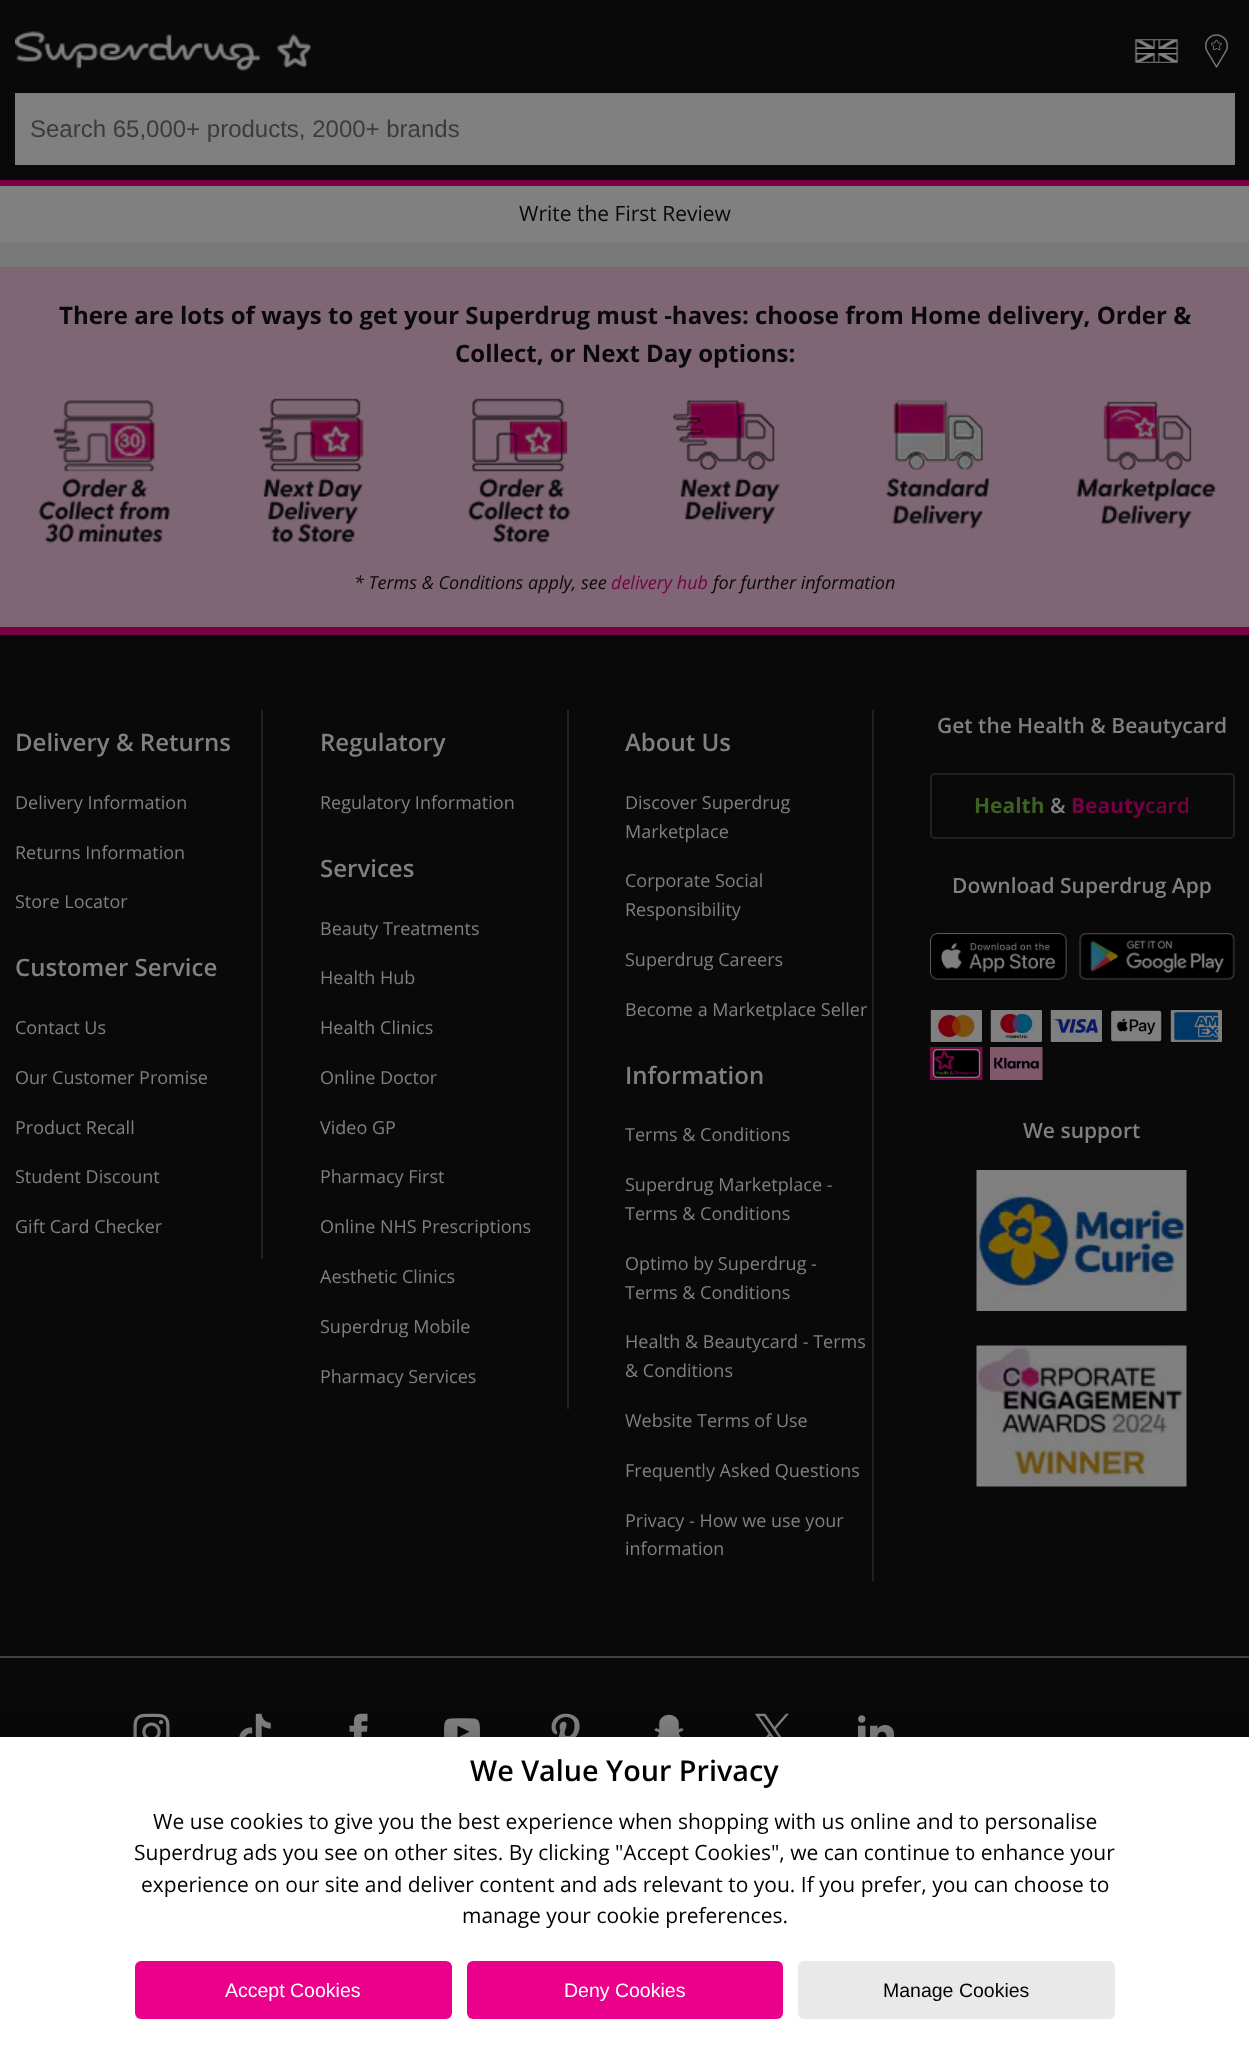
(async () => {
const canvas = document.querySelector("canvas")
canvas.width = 1249
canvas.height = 2049
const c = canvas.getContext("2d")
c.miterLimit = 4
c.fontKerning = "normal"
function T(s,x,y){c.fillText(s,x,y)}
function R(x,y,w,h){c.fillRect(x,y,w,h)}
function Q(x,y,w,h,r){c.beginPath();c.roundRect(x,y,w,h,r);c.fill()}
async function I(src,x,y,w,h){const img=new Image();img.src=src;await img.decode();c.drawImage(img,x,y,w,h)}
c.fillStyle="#797979"
R(0,0,1249,2049)
c.fillStyle="#090909"
R(0,0,1249,180)
await I("1.png",1134,39,45,24)
await I("2.png",1205,34,23,34)
c.fillStyle="#770047"
R(0,180,1249,6)
await I("3.png",15,31,296,40)
c.fillStyle="#808080"
R(15,93,1220,72)
c.font="24px Liberation Sans"
c.fillStyle="#3b3b3b"
T("Search 65,000+ products, 2000+ brands",30,137)
c.fillStyle="#808080"
R(0,186,1249,57)
c.font="21px Open Sans"
c.fillStyle="#090909"
T("Write the First Review",519,221)
R(0,635,1249,1102)
c.fillStyle="#7e6674"
R(0,267,1249,360)
c.fillStyle="#770047"
R(0,627,1249,8)
c.font="bold 24px Open Sans"
c.fillStyle="#090909"
T("There are lots of ways to get your Superdrug must -haves: choose from Home delivery, Order &",59,324)
T("Collect, or Next Day options:",455,362)
await I("4.png",38,400,132,144)
await I("5.png",259,398,105,146)
await I("6.png",467,398,104,146)
await I("7.png",673,400,108,124)
await I("8.png",886,400,105,129)
await I("9.png",1076,401,140,128)
c.font="italic 18px Open Sans"
T("* Terms & Conditions apply, see",354,589)
c.fillStyle="#704"
T("delivery hub",611,589)
c.fillStyle="#090909"
T("for further information",713,589)
c.fillStyle="#404040"
R(0,1656,1249,2)
c.font="600 24px Open Sans"
c.fillStyle="#808080"
T("Delivery & Returns",15,751)
c.font="18px Open Sans"
T("Delivery Information",15,809)
T("Returns Information",15,859)
T("Store Locator",15,908)
c.fillStyle="#222"
R(261,710,2,549)
c.font="600 24px Open Sans"
c.fillStyle="#808080"
T("Customer Service",15,976)
c.font="18px Open Sans"
T("Contact Us",15,1034)
T("Our Customer Promise",15,1084)
T("Product Recall",15,1134)
T("Student Discount",15,1183)
T("Gift Card Checker",15,1233)
c.font="600 24px Open Sans"
T("Regulatory",320,751)
c.font="18px Open Sans"
T("Regulatory Information",320,809)
c.fillStyle="#222"
R(567,710,2,699)
c.font="600 24px Open Sans"
c.fillStyle="#808080"
T("Services",320,877)
c.font="18px Open Sans"
T("Beauty Treatments",320,935)
T("Health Hub",320,984)
T("Health Clinics",320,1034)
T("Online Doctor",320,1084)
T("Video GP",320,1134)
T("Pharmacy First",320,1183)
T("Online NHS Prescriptions",320,1233)
T("Aesthetic Clinics",320,1283)
T("Superdrug Mobile",320,1333)
T("Pharmacy Services",320,1383)
c.font="600 24px Open Sans"
T("About Us",625,751)
c.font="18px Open Sans"
T("Discover Superdrug",625,809)
T("Marketplace",625,838)
T("Corporate Social",625,887)
T("Responsibility",625,916)
T("Superdrug Careers",625,966)
T("Become a Marketplace Seller",625,1016)
c.fillStyle="#222"
R(872,710,2,871)
c.font="600 24px Open Sans"
c.fillStyle="#808080"
T("Information",625,1084)
c.font="18px Open Sans"
T("Terms & Conditions",625,1141)
T("Superdrug Marketplace -",625,1191)
T("Terms & Conditions",625,1220)
T("Optimo by Superdrug -",625,1270)
T("Terms & Conditions",625,1299)
T("Health & Beautycard - Terms",625,1348)
T("& Conditions",625,1377)
T("Website Terms of Use",625,1427)
T("Frequently Asked Questions",625,1477)
T("Privacy - How we use your",625,1527)
T("information",625,1555)
c.font="600 21px Open Sans"
T("Get the Health & Beautycard",937,733)
c.beginPath()
c.roundRect(931,774,303,64,4)
c.strokeStyle="#222"
c.lineWidth=2
c.stroke()
c.font="bold 21px Open Sans"
c.fillStyle="#3d6123"
T("Health",974,813)
c.font="600 21px Open Sans"
c.fillStyle="#808080"
T("&",1050,813)
c.font="bold 21px Open Sans"
c.fillStyle="#704"
T("Beauty",1071,813)
c.font="600 21px Open Sans"
T("card",1145,813)
c.fillStyle="#808080"
T("Download Superdrug App",952,893)
await I("10.png",930,933,305,47)
await I("11.png",930,1009,53,34)
await I("12.png",990,1009,53,34)
await I("13.png",1050,1009,53,34)
await I("14.png",1110,1009,53,34)
await I("15.png",1170,1009,53,34)
await I("16.png",930,1047,53,33)
await I("17.png",990,1047,53,33)
T("We support",1023,1138)
await I("18.png",976,1170,211,141)
await I("19.png",976,1345,211,142)
await I("20.png",133,1713,37,24)
await I("21.png",239,1713,32,24)
await I("22.png",349,1713,19,24)
await I("23.png",444,1718,36,19)
await I("24.png",551,1713,29,24)
await I("25.png",654,1714,30,23)
await I("26.png",755,1713,34,24)
await I("27.png",858,1715,36,22)
c.fillStyle="#00000033"
c.filter="blur(13.5px)"
c.beginPath()
c.rect(0,1737,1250,312)
c.fill()
c.filter="none"
c.fillStyle="#fff"
R(0,1737,1249,312)
c.font="600 28.75px Open Sans"
c.fillStyle="#000"
T("We Value Your Privacy",470,1781)
c.font="21px Open Sans"
T("We use cookies to give you the best experience when shopping with us online and to personalise",153,1829)
T("Superdrug ads you see on other sites. By clicking \"Accept Cookies\", we can continue to enhance your",134,1860)
T("experience on our site and deliver content and ads relevant to you. If you prefer, you can choose to",141,1892)
T("manage your cookie preferences.",462,1923)
c.fillStyle="#eb008b"
Q(135,1961,317,58,6)
c.font="19.5px Liberation Sans"
c.fillStyle="#fff"
T("Accept Cookies",225,1997)
c.fillStyle="#eb008b"
Q(467,1961,316,58,6)
c.fillStyle="#fff"
T("Deny Cookies",564,1997)
c.fillStyle="#e9e9e9"
Q(798,1961,317,58,6)
c.fillStyle="#000"
T("Manage Cookies",883,1997)
})()
